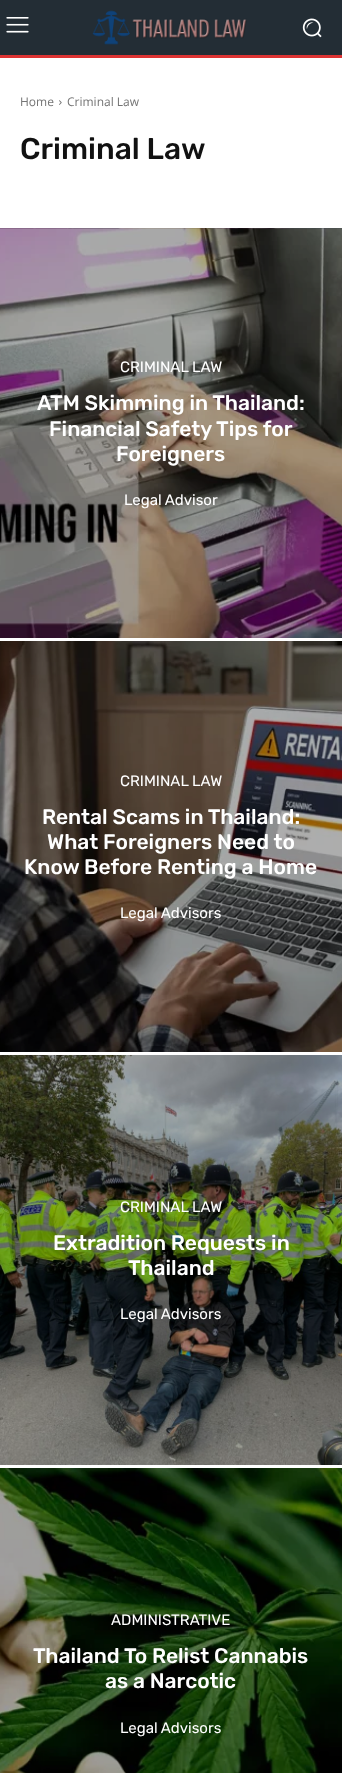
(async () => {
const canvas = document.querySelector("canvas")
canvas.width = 342
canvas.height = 1773
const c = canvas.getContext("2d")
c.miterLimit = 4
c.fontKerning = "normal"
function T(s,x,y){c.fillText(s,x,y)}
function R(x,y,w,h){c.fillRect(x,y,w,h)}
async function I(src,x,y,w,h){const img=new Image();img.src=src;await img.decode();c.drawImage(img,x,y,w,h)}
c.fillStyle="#fff"
R(0,0,342,1773)
c.fillStyle="#232d35"
R(0,0,342,55)
await I("1.png",6,17,23,16)
await I("2.png",92,10,155,35)
await I("3.png",302,18,20,20)
c.fillStyle="#d33"
R(0,55,342,3)
c.font="12px Open Sans"
c.fillStyle="#747474"
T("Home",20,106)
await I("4.png",59,100,3,5)
T("Criminal Law",67,106)
c.font="500 30px Rubik"
c.fillStyle="#111"
T("Criminal Law",20,159)
await I("5.png",0,228,342,410)
c.font="15px Rubik"
c.fillStyle="#fff"
T("CRIMINAL LAW",120,372)
c.font="500 21px Rubik"
T("ATM Skimming in Thailand:",37,410)
T("Financial Safety Tips for",49,436)
T("Foreigners",116,461)
c.font="15px Rubik"
T("Legal Advisor",124,505)
await I("6.png",0,641,342,411)
T("CRIMINAL LAW",120,786)
c.font="500 21px Rubik"
T("Rental Scams in Thailand:",42,824)
T("What Foreigners Need to",47,849)
T("Know Before Renting a Home",24,874)
c.font="15px Rubik"
T("Legal Advisors",120,918)
await I("7.png",0,1055,342,410)
T("CRIMINAL LAW",120,1212)
c.font="500 21px Rubik"
T("Extradition Requests in",53,1250)
T("Thailand",128,1275)
c.font="15px Rubik"
T("Legal Advisors",120,1319)
await I("8.png",0,1468,342,305)
T("ADMINISTRATIVE",111,1625)
c.font="500 21px Rubik"
T("Thailand To Relist Cannabis",33,1663)
T("as a Narcotic",105,1688)
c.font="15px Rubik"
T("Legal Advisors",120,1733)
})()
